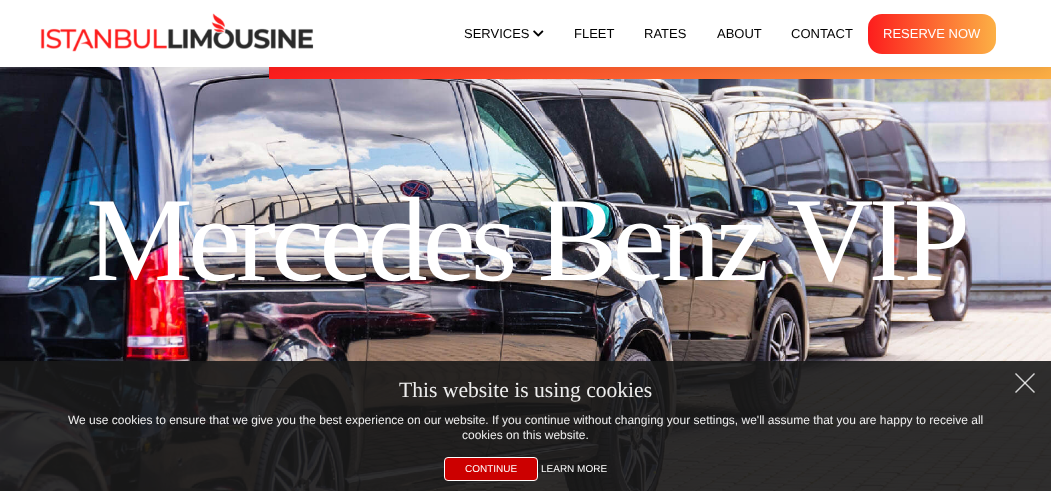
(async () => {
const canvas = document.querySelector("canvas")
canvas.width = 1051
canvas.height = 491
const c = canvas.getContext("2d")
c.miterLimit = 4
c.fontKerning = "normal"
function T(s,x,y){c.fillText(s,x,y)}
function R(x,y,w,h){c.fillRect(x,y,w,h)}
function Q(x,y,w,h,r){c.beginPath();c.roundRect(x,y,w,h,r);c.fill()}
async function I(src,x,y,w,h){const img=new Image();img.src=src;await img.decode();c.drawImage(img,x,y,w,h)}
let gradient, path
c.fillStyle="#fff"
R(0,0,1051,491)
await I("3.png",0,67,1051,424)
gradient = c.createLinearGradient(269,73,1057,73)
gradient.addColorStop(0,"#fd1d1d")
gradient.addColorStop(1,"#fcb045")
c.fillStyle = gradient
R(269,67,782,12)
c.fillStyle="#0000001a"
c.filter="blur(7.5px)"
c.beginPath()
c.rect(0,0,1051,67)
c.fill()
c.filter="none"
c.fillStyle="#fff"
R(0,0,1051,67)
await I("1.png",40,13,274,39)
c.font="13px Liberation Sans"
c.fillStyle="#000"
T("SERVICES",464,38)
await I("2.png",533,30,11,7)
T("FLEET",574,38)
T("RATES",644,38)
T("ABOUT",717,38)
T("CONTACT",791,38)
gradient = c.createLinearGradient(868,34,996,34)
gradient.addColorStop(0,"#fd1d1d")
gradient.addColorStop(1,"#fcb045")
c.fillStyle = gradient
Q(868,14,128,40,14)
c.fillStyle="#fff"
T("RESERVE NOW",883,38)
c.letterSpacing="-5px"
c.font="120px Liberation Serif"
T("Mercedes Benz VIP",86,280)
c.fillStyle="#191919e6"
R(0,361,1051,130)
c.letterSpacing="0px"
c.font="21.6px Liberation Serif"
c.fillStyle="#eee"
T("This website is using cookies",399,397)
c.font="12px Liberation Sans"
T("We use cookies to ensure that we give you the best experience on our website. If you continue without changing your settings, we'll assume that you are happy to receive all",68,424)
T("cookies on this website.",462,439)
path = new Path2D("M1015.5 392.5l19-19")
c.strokeStyle="#d5d5d5"
c.lineWidth=1.5
c.stroke(path)
path = new Path2D("M1034.5 392.5l-19-19")
c.strokeStyle="#ffffffcc"
c.stroke(path)
c.fillStyle="#c00"
c.beginPath()
c.roundRect(444.5,457.5,93,23,3.5)
c.fill()
c.strokeStyle="#fff"
c.lineWidth=1
c.stroke()
c.font="10px Liberation Sans"
c.fillStyle="#fff"
T("CONTINUE",465,472)
T("LEARN MORE",541,472)
})()
